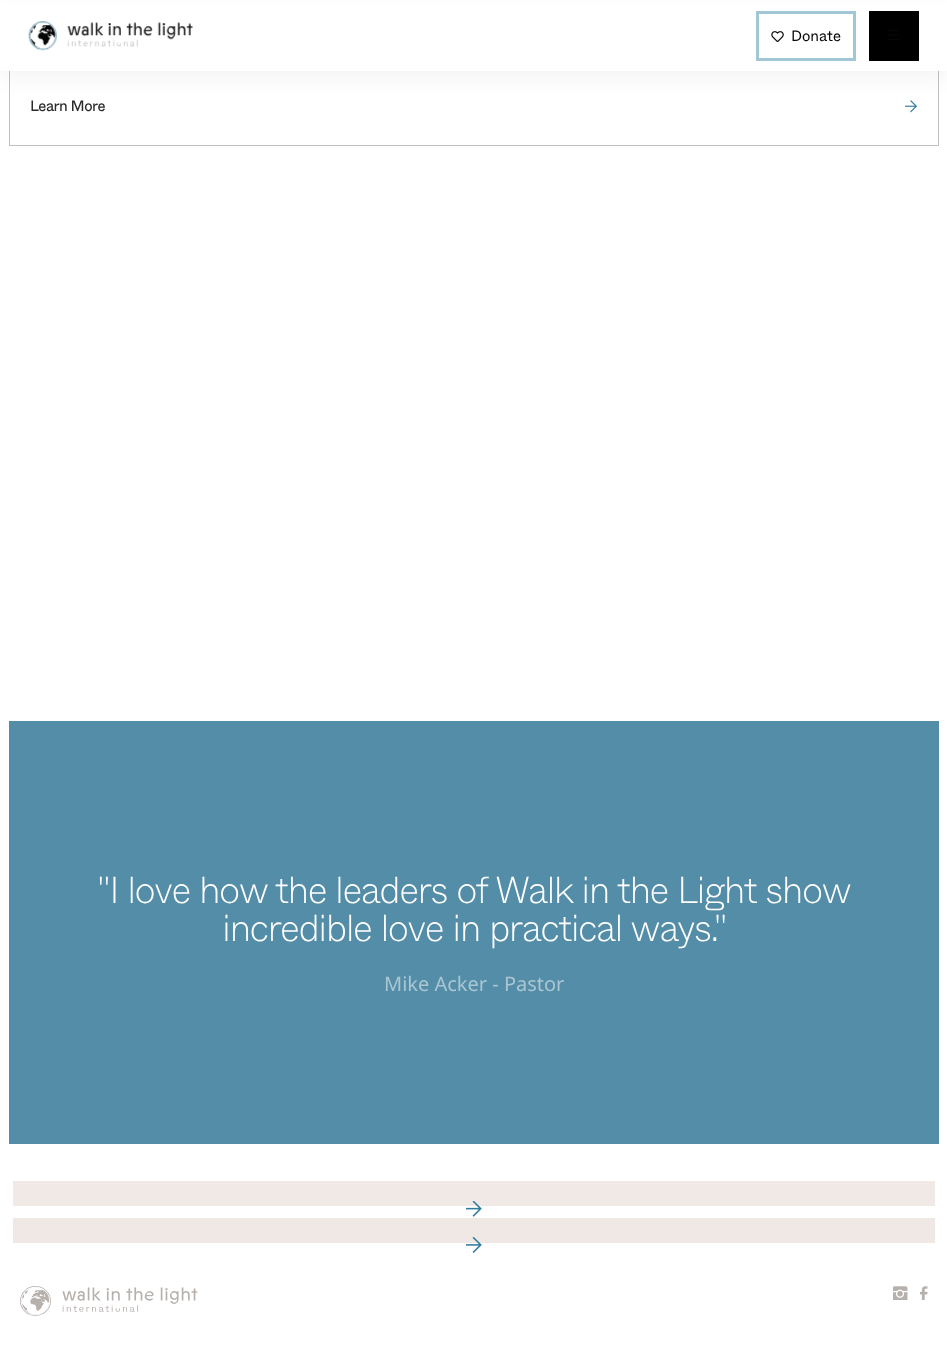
(async () => {
const canvas = document.querySelector("canvas")
canvas.width = 947
canvas.height = 1359
const c = canvas.getContext("2d")
c.miterLimit = 4
c.fontKerning = "normal"
function T(s,x,y){c.fillText(s,x,y)}
function R(x,y,w,h){c.fillRect(x,y,w,h)}
async function I(src,x,y,w,h){const img=new Image();img.src=src;await img.decode();c.drawImage(img,x,y,w,h)}
let path
c.fillStyle="#fff"
R(0,0,947,1359)
c.strokeStyle="#c1c1c1"
c.strokeRect(9.5,6.5,929,139)
await I("3.png",905,100,12,13)
c.fillStyle="#0305040a"
c.filter="blur(9.5px)"
c.beginPath()
c.rect(0,9,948,71)
c.fill()
c.filter="none"
c.fillStyle="#fff"
R(0,3,947,68)
await I("1.png",28,21,165,30)
c.strokeStyle="#a1c6d6"
c.lineWidth=3
c.strokeRect(757.5,12.5,97,47)
await I("2.png",771,31,13,11)
c.font="300 15px 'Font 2'"
c.fillStyle="#060706"
T("Donate",791,41)
c.fillStyle="#000"
R(869,11,50,50)
c.fillStyle="#060706"
R(888,30,12,1)
c.save()
c.beginPath()
c.rect(888,30,12,11)
c.clip()
path = new Path2D("M887.5 35h13")
c.strokeStyle="#060706"
c.lineWidth=1.2
c.stroke(path)
c.restore()
R(888,39,12,1)
c.letterSpacing="-0.5px"
c.font="15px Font"
c.fillStyle="#2a2a2a"
T("Learn More",30,111)
c.fillStyle="#548da7"
R(9,721,930,423)
c.letterSpacing="-1.5px"
c.font="300 37.5px Font"
c.fillStyle="#fff"
T("\"I love how the leaders of Walk in the Light show",97,903)
T("incredible love in practical ways.\"",222,941)
c.letterSpacing="0px"
c.font="20px Noto Sans"
c.fillStyle="#aac6d3"
T("Mike Acker - Pastor",384,991)
c.fillStyle="#f0e9e6"
R(13,1181,922,25)
await I("4.png",466,1201,16,16)
c.fillStyle="#efe8e4"
R(13,1218,922,25)
await I("5.png",466,1236,16,17)
await I("6.png",20,1286,178,30)
await I("7.png",893,1286,15,14)
await I("8.png",920,1286,8,14)
})()
